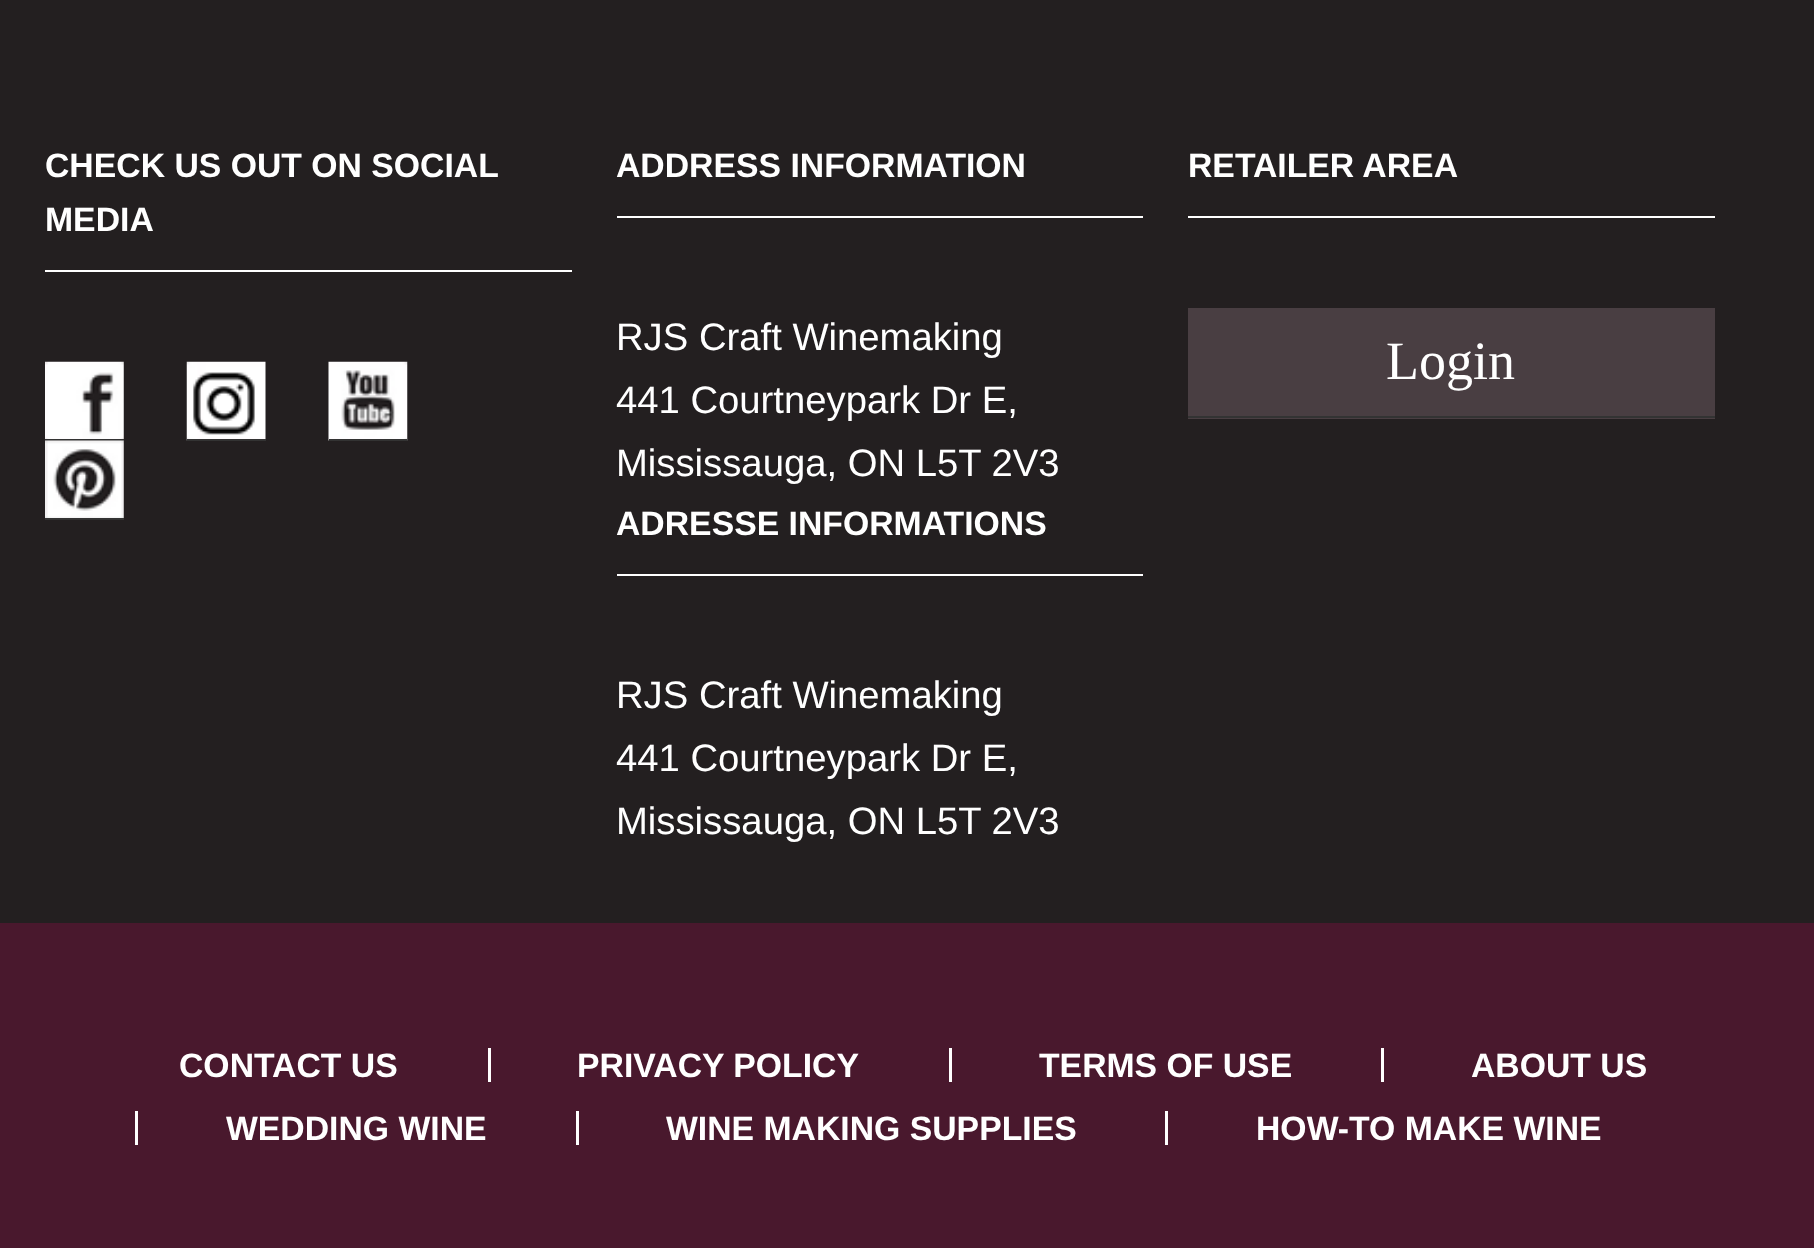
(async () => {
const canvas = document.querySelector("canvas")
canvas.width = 1814
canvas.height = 1248
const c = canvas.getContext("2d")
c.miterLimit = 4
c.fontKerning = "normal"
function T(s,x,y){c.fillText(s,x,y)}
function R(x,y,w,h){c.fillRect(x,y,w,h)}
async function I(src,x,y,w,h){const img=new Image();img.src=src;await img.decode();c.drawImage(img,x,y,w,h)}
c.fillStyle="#231f20"
R(0,0,1814,1248)
c.fillStyle="#fff"
R(45,270,527,2)
c.font="bold 33.75px Liberation Sans"
T("CHECK US OUT ON SOCIAL",45,177)
T("MEDIA",45,231)
await I("1.png",45,361,79,78)
c.fillStyle="#333"
R(45,439,79,2)
await I("2.png",186,361,80,80)
R(187,439,79,2)
await I("3.png",328,361,80,80)
R(329,439,78,2)
await I("4.png",45,440,79,78)
R(45,518,79,2)
c.fillStyle="#fff"
R(617,216,526,2)
T("ADDRESS INFORMATION",616,177)
c.font="38.25px Liberation Sans"
T("RJS Craft Winemaking",616,350)
T("441 Courtneypark Dr E,",616,413)
T("Mississauga, ON L5T 2V3",616,476)
R(617,574,526,2)
c.font="bold 33.75px Liberation Sans"
T("ADRESSE INFORMATIONS",616,535)
c.font="38.25px Liberation Sans"
T("RJS Craft Winemaking",616,708)
T("441 Courtneypark Dr E,",616,771)
T("Mississauga, ON L5T 2V3",616,834)
R(1188,216,527,2)
c.font="bold 33.75px Liberation Sans"
T("RETAILER AREA",1188,177)
c.fillStyle="#493e42"
R(1188,308,527,111)
c.fillStyle="#333"
R(1188,416,527,2)
c.font="54px Liberation Serif"
c.fillStyle="#fff"
T("Login",1386,379)
c.fillStyle="#49182d"
R(0,923,1814,325)
c.font="bold 33.75px Liberation Sans"
c.fillStyle="#fff"
T("CONTACT US",179,1077)
R(488,1048,3,34)
T("PRIVACY POLICY",577,1077)
R(949,1048,3,34)
T("TERMS OF USE",1039,1077)
R(1381,1048,3,34)
T("ABOUT US",1471,1077)
R(135,1111,3,34)
T("WEDDING WINE",226,1140)
R(576,1111,3,34)
T("WINE MAKING SUPPLIES",666,1140)
R(1165,1111,3,34)
T("HOW-TO MAKE WINE",1256,1140)
})()
